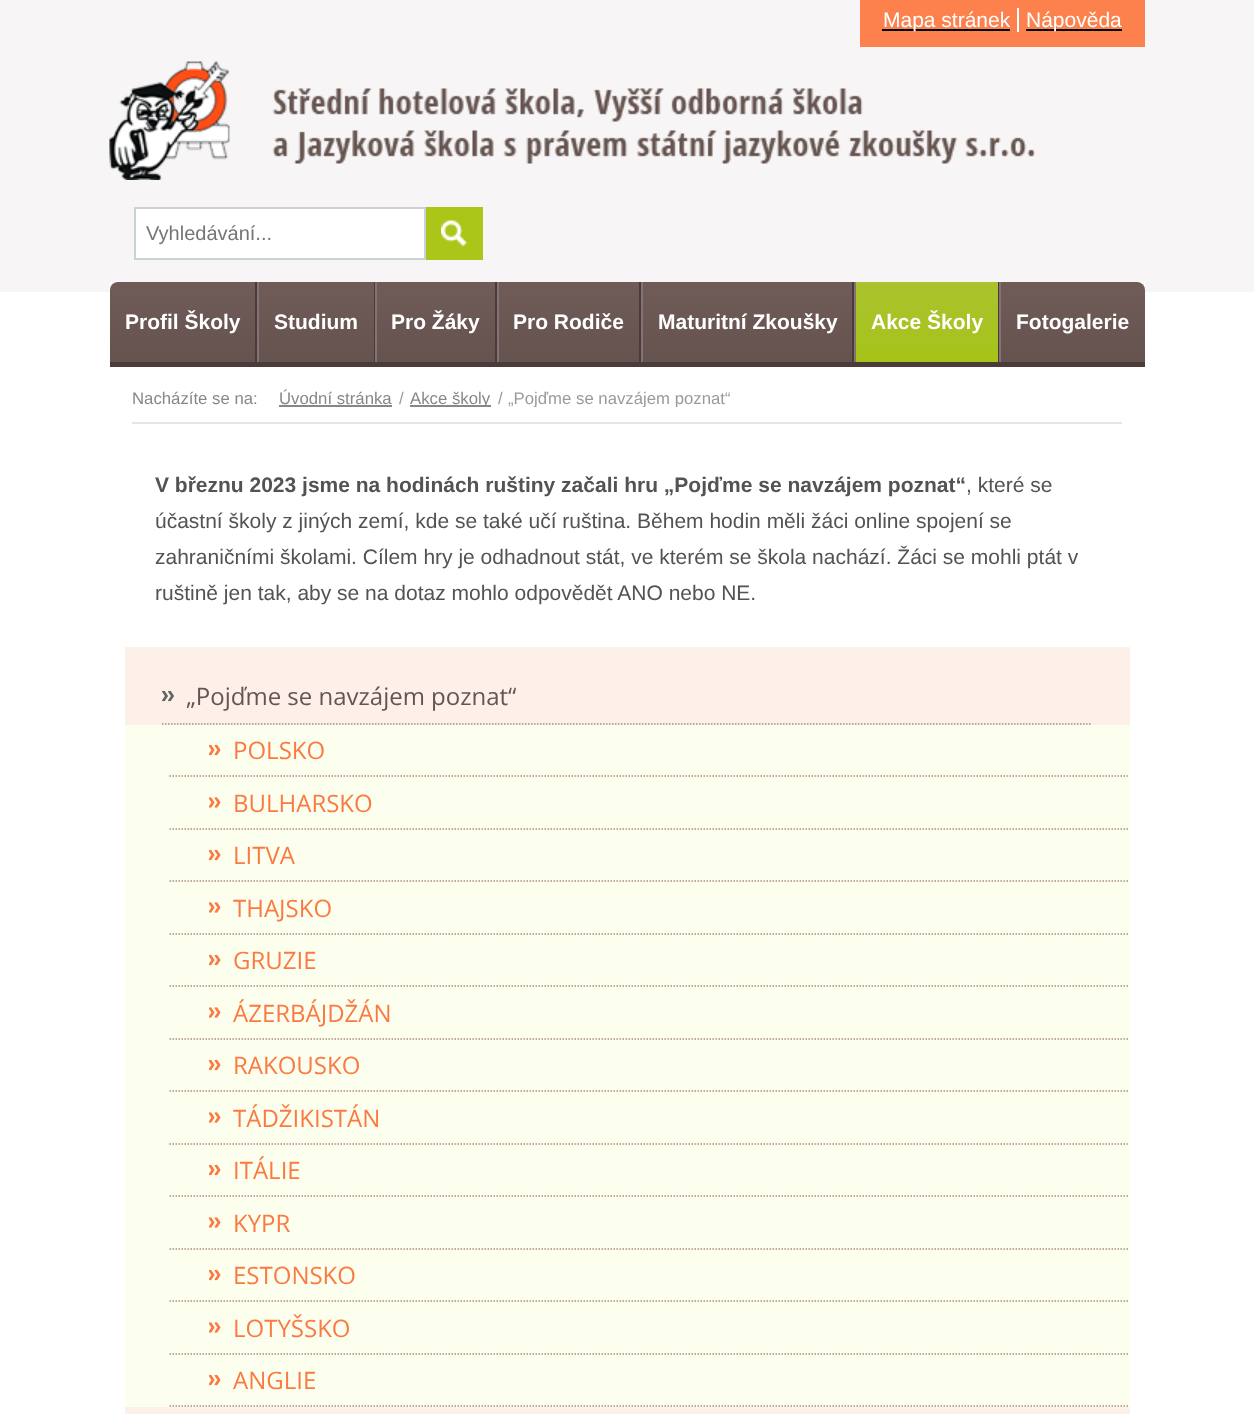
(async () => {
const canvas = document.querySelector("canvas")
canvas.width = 1254
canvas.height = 1414
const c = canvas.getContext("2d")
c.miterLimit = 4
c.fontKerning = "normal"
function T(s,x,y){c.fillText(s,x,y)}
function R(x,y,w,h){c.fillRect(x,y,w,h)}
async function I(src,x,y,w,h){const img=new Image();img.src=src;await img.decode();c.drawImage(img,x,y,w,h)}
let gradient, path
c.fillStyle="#f7f5f6"
R(0,0,1254,1414)
c.fillStyle="#fff"
R(0,292,1254,1122)
c.fillStyle="#fc814d"
R(860,0,285,47)
c.fillStyle="#000"
R(882,29,128,2)
c.font="21px Liberation Sans"
c.fillStyle="#fff"
T("Mapa stránek",883,27)
R(1017,8,2,24)
c.fillStyle="#000"
R(1026,29,96,2)
c.fillStyle="#fff"
T("Nápověda",1026,27)
await I("1.png",109,61,926,119)
c.beginPath()
c.rect(135,208,290,51)
c.fill()
c.strokeStyle="#c9d3d6"
c.lineWidth=2
c.stroke()
c.font="20px Liberation Sans"
c.fillStyle="#757575"
T("Vyhledávání...",146,240)
c.fillStyle="#abc519"
R(426,207,57,53)
await I("2.png",441,220,26,27)
c.fillStyle="#fff"
R(110,282,1035,10)
gradient = c.createLinearGradient(627,282,627,362)
gradient.addColorStop(0,"#705b58")
gradient.addColorStop(1,"#655350")
c.fillStyle = gradient
c.beginPath()
c.roundRect(110,282,1035,80,[8,8,0,0])
c.fill()
c.fillStyle="#4b3c39"
R(110,362,1035,5)
c.fillStyle="#4a3a3a"
R(255,282,2,80)
c.font="bold 21px Liberation Sans"
c.fillStyle="#fff"
T("Profil Školy",125,329)
c.fillStyle="#4a3a3a"
R(374,282,1,80)
c.fillStyle="#837375"
R(257,282,2,80)
c.fillStyle="#fff"
T("Studium",274,329)
c.fillStyle="#4a3a3a"
R(495,282,2,80)
c.fillStyle="#837375"
R(375,282,2,80)
c.fillStyle="#fff"
T("Pro Žáky",391,329)
c.fillStyle="#4a3a3a"
R(639,282,2,80)
c.fillStyle="#837375"
R(497,282,2,80)
c.fillStyle="#fff"
T("Pro Rodiče",513,329)
c.fillStyle="#4a3a3a"
R(852,282,2,80)
c.fillStyle="#837375"
R(641,282,2,80)
c.fillStyle="#fff"
T("Maturitní Zkoušky",658,329)
gradient = c.createLinearGradient(926,282,926,362)
gradient.addColorStop(0,"#aac32e")
gradient.addColorStop(1,"#a6c319")
c.fillStyle = gradient
R(856,282,142,80)
c.fillStyle="#4a3a3a"
R(998,282,1,80)
c.fillStyle="#837375"
R(854,282,2,80)
c.fillStyle="#fff"
T("Akce Školy",871,329)
c.fillStyle="#837375"
R(999,282,2,80)
c.fillStyle="#fff"
T("Fotogalerie",1016,329)
c.fillStyle="#e7e6e7"
R(132,422,990,2)
c.font="16.75px Liberation Sans"
c.fillStyle="#878787"
T("Nacházíte se na:",132,404)
T("Úvodní stránka",279,404)
R(279,405,113,2)
c.fillStyle="#9a9a9a"
T("/",399,404)
c.fillStyle="#878787"
R(410,405,81,2)
c.save()
c.beginPath()
c.rect(258,389,864,18)
c.clip()
T("Akce školy",410,404)
c.restore()
c.fillStyle="#9a9a9a"
T("/",498,404)
c.save()
c.beginPath()
c.rect(258,389,864,18)
c.clip()
T("„Pojďme se navzájem poznat“",508,404)
c.restore()
c.font="bold 21px Liberation Sans"
c.fillStyle="#535353"
T("V březnu 2023 jsme na hodinách ruštiny začali hru „Pojďme se navzájem poznat“",155,492)
c.font="21px Liberation Sans"
T(", které se",966,492)
T("účastní školy z jiných zemí, kde se také učí ruština. Během hodin měli žáci online spojení se",155,528)
T("zahraničními školami. Cílem hry je odhadnout stát, ve kterém se škola nachází. Žáci se mohli ptát v",155,564)
T("ruštině jen tak, aby se na dotaz mohlo odpovědět ANO nebo NE.",155,600)
c.fillStyle="#fdf0e8"
R(125,647,1005,767)
path = new Path2D("M162 724h930")
c.strokeStyle="#ac8c82"
c.lineWidth=1.5
c.setLineDash([1.5,1.5])
c.stroke(path)
await I("3.png",162,690,12,12)
c.font="24px Open Sans"
c.fillStyle="#655456"
T("„Pojďme se navzájem poznat“",186,705)
c.fillStyle="#fcffed"
R(125,725,1005,682)
path = new Path2D("M169.5 776h960")
c.stroke(path)
await I("4.png",209,744,12,12)
c.fillStyle="#fb7a44"
T("POLSKO",233,759)
path = new Path2D("M169.5 829h960")
c.stroke(path)
await I("5.png",209,797,12,11)
T("BULHARSKO",233,812)
path = new Path2D("M169.5 881h960")
c.stroke(path)
await I("4.png",209,849,12,12)
T("LITVA",233,864)
path = new Path2D("M169.5 934h960")
c.stroke(path)
await I("5.png",209,902,12,11)
T("THAJSKO",233,917)
path = new Path2D("M169.5 986h960")
c.stroke(path)
await I("4.png",209,954,12,12)
T("GRUZIE",233,969)
path = new Path2D("M169.5 1039h960")
c.stroke(path)
await I("5.png",209,1007,12,11)
T("ÁZERBÁJDŽÁN",233,1022)
path = new Path2D("M169.5 1091h960")
c.stroke(path)
await I("4.png",209,1059,12,12)
T("RAKOUSKO",233,1074)
path = new Path2D("M169.5 1144h960")
c.stroke(path)
await I("5.png",209,1112,12,11)
T("TÁDŽIKISTÁN",233,1127)
path = new Path2D("M169.5 1196h960")
c.stroke(path)
await I("4.png",209,1164,12,12)
T("ITÁLIE",233,1179)
path = new Path2D("M169.5 1249h960")
c.stroke(path)
await I("5.png",209,1217,12,11)
T("KYPR",233,1232)
path = new Path2D("M169.5 1301h960")
c.stroke(path)
await I("4.png",209,1269,12,12)
T("ESTONSKO",233,1284)
path = new Path2D("M169.5 1354h960")
c.stroke(path)
await I("5.png",209,1322,12,11)
T("LOTYŠSKO",233,1337)
path = new Path2D("M169.5 1406h960")
c.stroke(path)
await I("4.png",209,1374,12,12)
T("ANGLIE",233,1389)
})()
